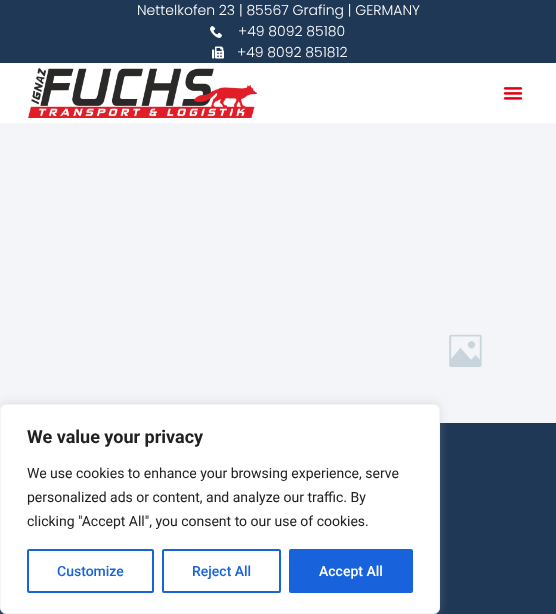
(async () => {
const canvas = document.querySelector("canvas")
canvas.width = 556
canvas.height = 614
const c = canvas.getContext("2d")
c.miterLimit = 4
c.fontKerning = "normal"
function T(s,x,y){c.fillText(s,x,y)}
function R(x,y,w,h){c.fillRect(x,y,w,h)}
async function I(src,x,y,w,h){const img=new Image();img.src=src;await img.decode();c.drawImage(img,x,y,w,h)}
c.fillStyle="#1f3855"
R(0,0,556,614)
c.font="300 14px Poppins"
c.fillStyle="#fff"
T("Nettelkofen 23 | 85567 Grafing | GERMANY",137,15)
await I("1.png",210,26,12,12)
T("+49 8092 85180",238,36)
await I("2.png",212,46,12,13)
T("+49 8092 851812",237,57)
R(0,63,556,60)
await I("3.png",28,68,229,50)
await I("4.png",503,87,20,13)
await I("5.png",0,123,556,300)
c.fillStyle="#acabab4d"
c.filter="blur(5px)"
c.beginPath()
c.roundRect(0,403,440,210,6)
c.fill()
c.filter="none"
c.fillStyle="#fff"
c.beginPath()
c.roundRect(.5,404.5,439,209,5.5)
c.fill()
c.strokeStyle="#f4f4f4"
c.stroke()
c.font="bold 18px Roboto"
c.fillStyle="#212121"
T("We value your privacy",27,443)
c.font="14px Roboto"
T("We use cookies to enhance your browsing experience, serve",27,478)
T("personalized ads or content, and analyze our traffic. By",27,502)
T("clicking \"Accept All\", you consent to our use of cookies.",27,526)
c.beginPath()
c.roundRect(28,550,125,42,1)
c.strokeStyle="#1863dc"
c.lineWidth=2
c.stroke()
c.font="500 14px Roboto"
c.fillStyle="#1863dc"
T("Customize",57,576)
c.beginPath()
c.roundRect(163,550,117,42,1)
c.stroke()
T("Reject All",192,576)
c.beginPath()
c.roundRect(290,550,122,42,1)
c.fill()
c.stroke()
c.fillStyle="#fff"
T("Accept All",319,576)
})()
